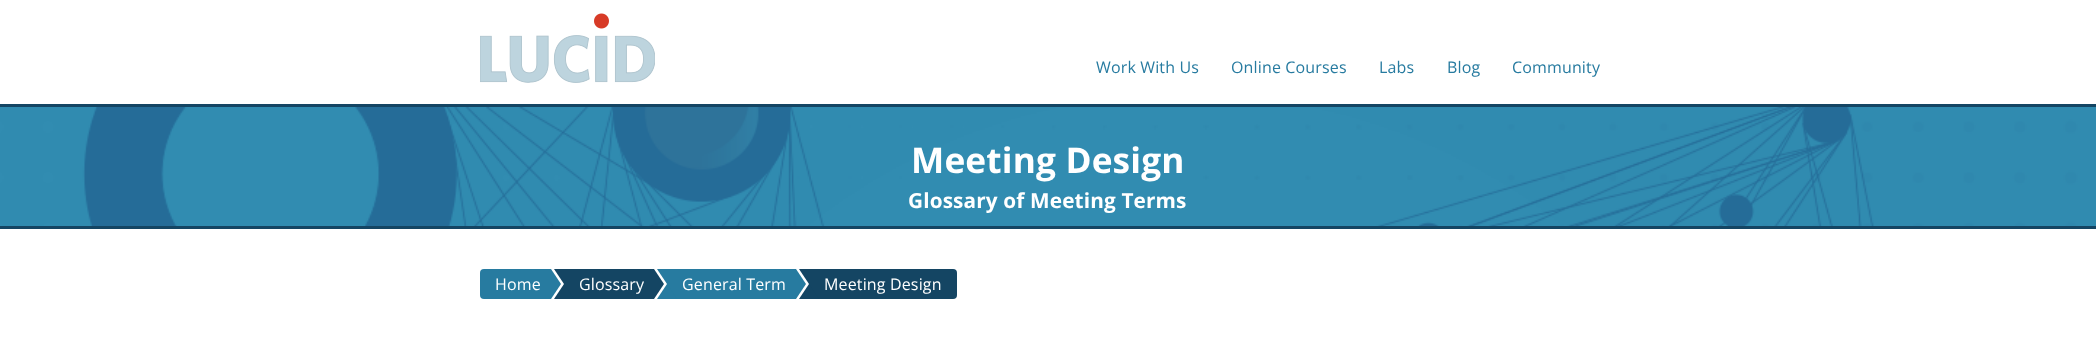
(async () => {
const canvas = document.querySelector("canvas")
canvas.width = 2096
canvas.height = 337
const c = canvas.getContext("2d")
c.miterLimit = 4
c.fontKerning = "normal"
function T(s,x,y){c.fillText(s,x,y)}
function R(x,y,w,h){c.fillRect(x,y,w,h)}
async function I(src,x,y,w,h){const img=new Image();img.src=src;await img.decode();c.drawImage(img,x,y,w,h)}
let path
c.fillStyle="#fff"
R(0,0,2096,337)
c.fillStyle="#144563"
R(0,104,2096,3)
await I("1.png",480,13,175,70)
c.letterSpacing="0.15px"
c.font="16px Open Sans"
c.fillStyle="#277ba0"
T("Work With Us",1096,73)
T("Online Courses",1231,73)
T("Labs",1379,73)
T("Blog",1447,73)
T("Community",1512,73)
await I("2.png",0,107,2096,119)
c.fillStyle="#144563"
R(0,226,2096,3)
c.font="bold 35.25px Open Sans"
c.fillStyle="#fff"
T("Meeting Design",911,173)
c.font="bold 20.75px Open Sans"
T("Glossary of Meeting Terms",908,208)
c.fillStyle="#277ba0"
c.beginPath()
c.roundRect(480,269,71,30,[4,0,0,4])
c.fill()
c.font="16px Open Sans"
c.fillStyle="#fff"
T("Home",495,290)
c.fillStyle="#277ba0"
path = new Path2D("M551 299v-30l10 15z")
c.fill(path)
c.fillStyle="#144563"
R(574,269,80,30)
path = new Path2D("M554 269h20l-10 15z")
c.fill(path)
R(564,269,10,30)
path = new Path2D("M574 299h-20l10-15z")
c.fill(path)
c.fillStyle="#fff"
T("Glossary",579,290)
c.fillStyle="#144563"
path = new Path2D("M654 299v-30l10 15z")
c.fill(path)
c.fillStyle="#277ba0"
R(677,269,119,30)
path = new Path2D("M657 269h20l-10 15z")
c.fill(path)
R(667,269,10,30)
path = new Path2D("M677 299h-20l10-15z")
c.fill(path)
c.fillStyle="#fff"
T("General Term",682,290)
c.fillStyle="#277ba0"
path = new Path2D("M796 299v-30l10 15z")
c.fill(path)
c.fillStyle="#144563"
c.beginPath()
c.roundRect(819,269,138,30,[0,4,4,0])
c.fill()
path = new Path2D("M799 269h20l-10 15z")
c.fill(path)
R(809,269,10,30)
path = new Path2D("M819 299h-20l10-15z")
c.fill(path)
c.fillStyle="#fff"
T("Meeting Design",824,290)
})()
